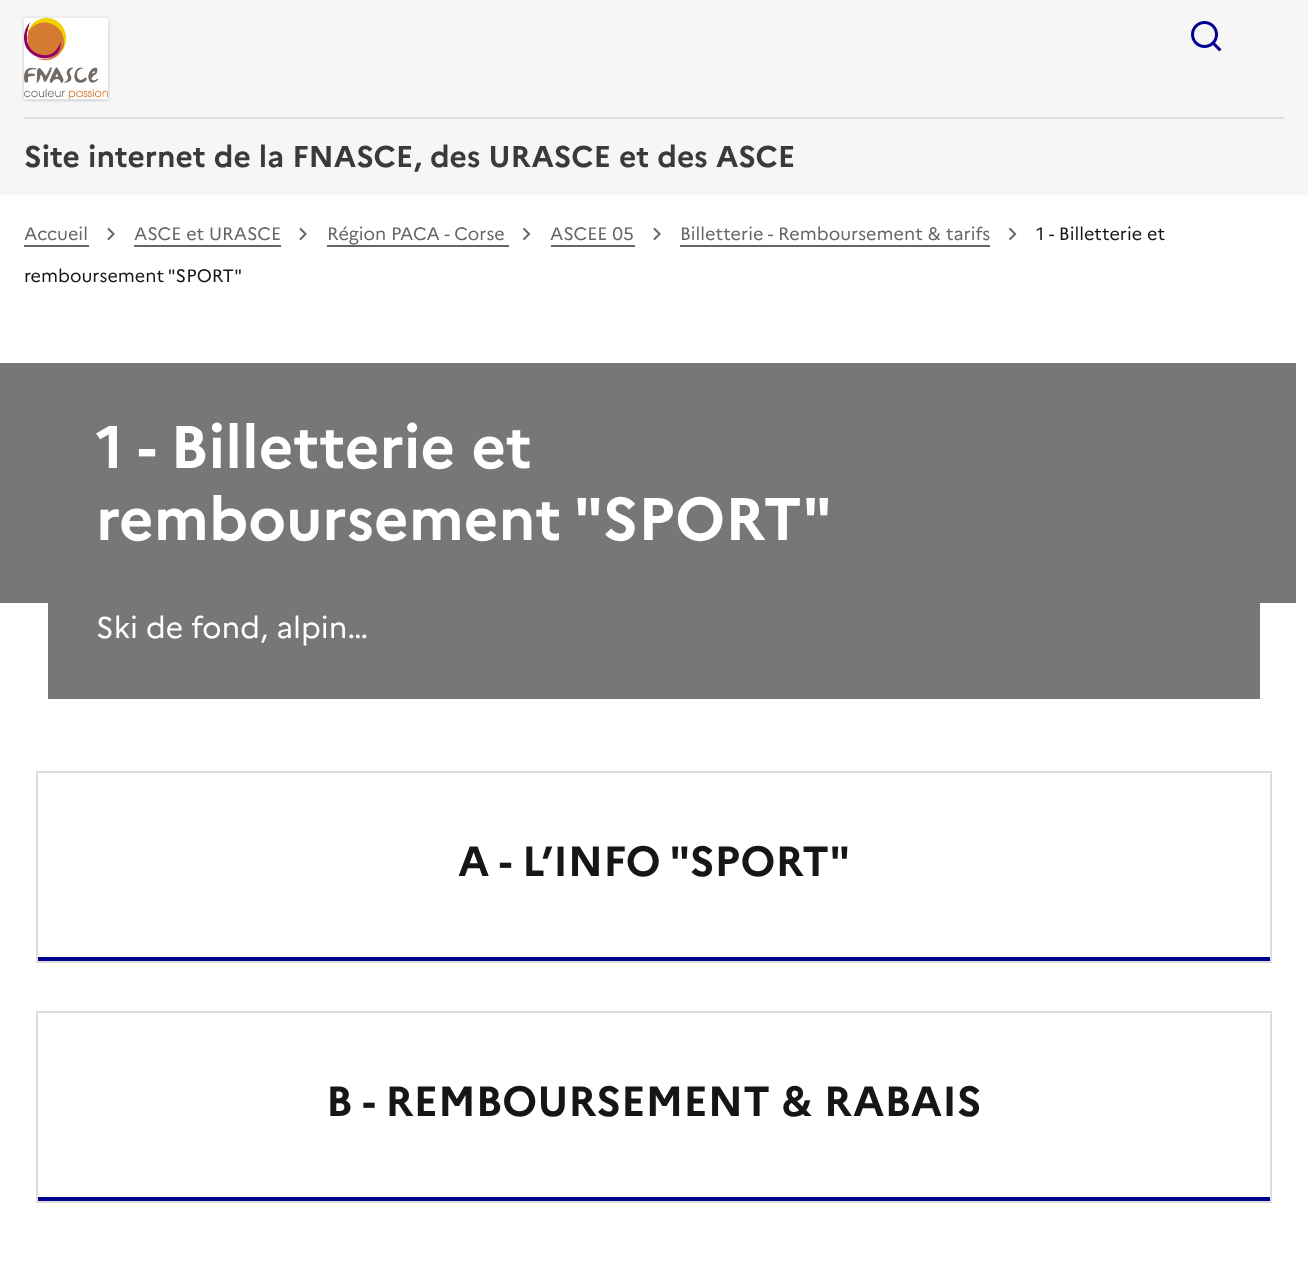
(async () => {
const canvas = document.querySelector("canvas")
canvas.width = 1308
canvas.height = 1264
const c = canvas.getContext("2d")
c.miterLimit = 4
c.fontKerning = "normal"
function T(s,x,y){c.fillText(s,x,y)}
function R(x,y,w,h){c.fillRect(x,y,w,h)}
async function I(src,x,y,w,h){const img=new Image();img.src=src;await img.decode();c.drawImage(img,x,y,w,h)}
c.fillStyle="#fff"
R(0,0,1308,1264)
c.fillStyle="#f6f6f6"
R(0,0,1308,195)
await I("1.png",22,16,88,86)
await I("2.png",1191,21,31,31)
c.fillStyle="#ddd"
R(24,117,1260,2)
c.font="bold 30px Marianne"
c.fillStyle="#3a3a3a"
T("Site internet de la FNASCE, des URASCE et des ASCE",24,167)
c.font="18px Marianne"
c.fillStyle="#666"
T("Accueil",24,240)
R(24,245,65,2)
await I("3.png",1008,227,9,14)
c.fillStyle="#161616"
T("1 - Billetterie et",1036,240)
T("remboursement \"SPORT\"",24,282)
await I("4.png",107,227,8,14)
c.fillStyle="#666"
T("ASCE et URASCE",134,240)
R(134,245,147,2)
await I("4.png",299,227,8,14)
T("Région PACA - Corse",327,240)
R(327,245,182,2)
await I("3.png",522,227,9,14)
T("ASCEE 05",550,240)
R(551,245,84,2)
await I("4.png",653,227,8,14)
T("Billetterie - Remboursement & tarifs",680,240)
R(680,245,310,2)
c.fillStyle="#797676"
R(0,363,1296,240)
c.font="bold 60px Marianne"
c.fillStyle="#fff"
T("1 - Billetterie et",96,468)
T("remboursement \"SPORT\"",96,540)
c.fillStyle="#797676"
R(48,603,1212,96)
c.font="30px Marianne"
c.fillStyle="#fff"
T("Ski de fond, alpin…",96,638)
c.fillStyle="#000091"
R(36,957,1236,4)
c.strokeStyle="#ddd"
c.lineWidth=2
c.strokeRect(37,772,1234,190)
c.font="bold 42px Marianne"
c.fillStyle="#161616"
T("A - L’INFO \"SPORT\"",458,876)
c.fillStyle="#000091"
R(36,1197,1236,4)
c.strokeRect(37,1012,1234,190)
c.fillStyle="#161616"
T("B - REMBOURSEMENT & RABAIS",326,1116)
})()
